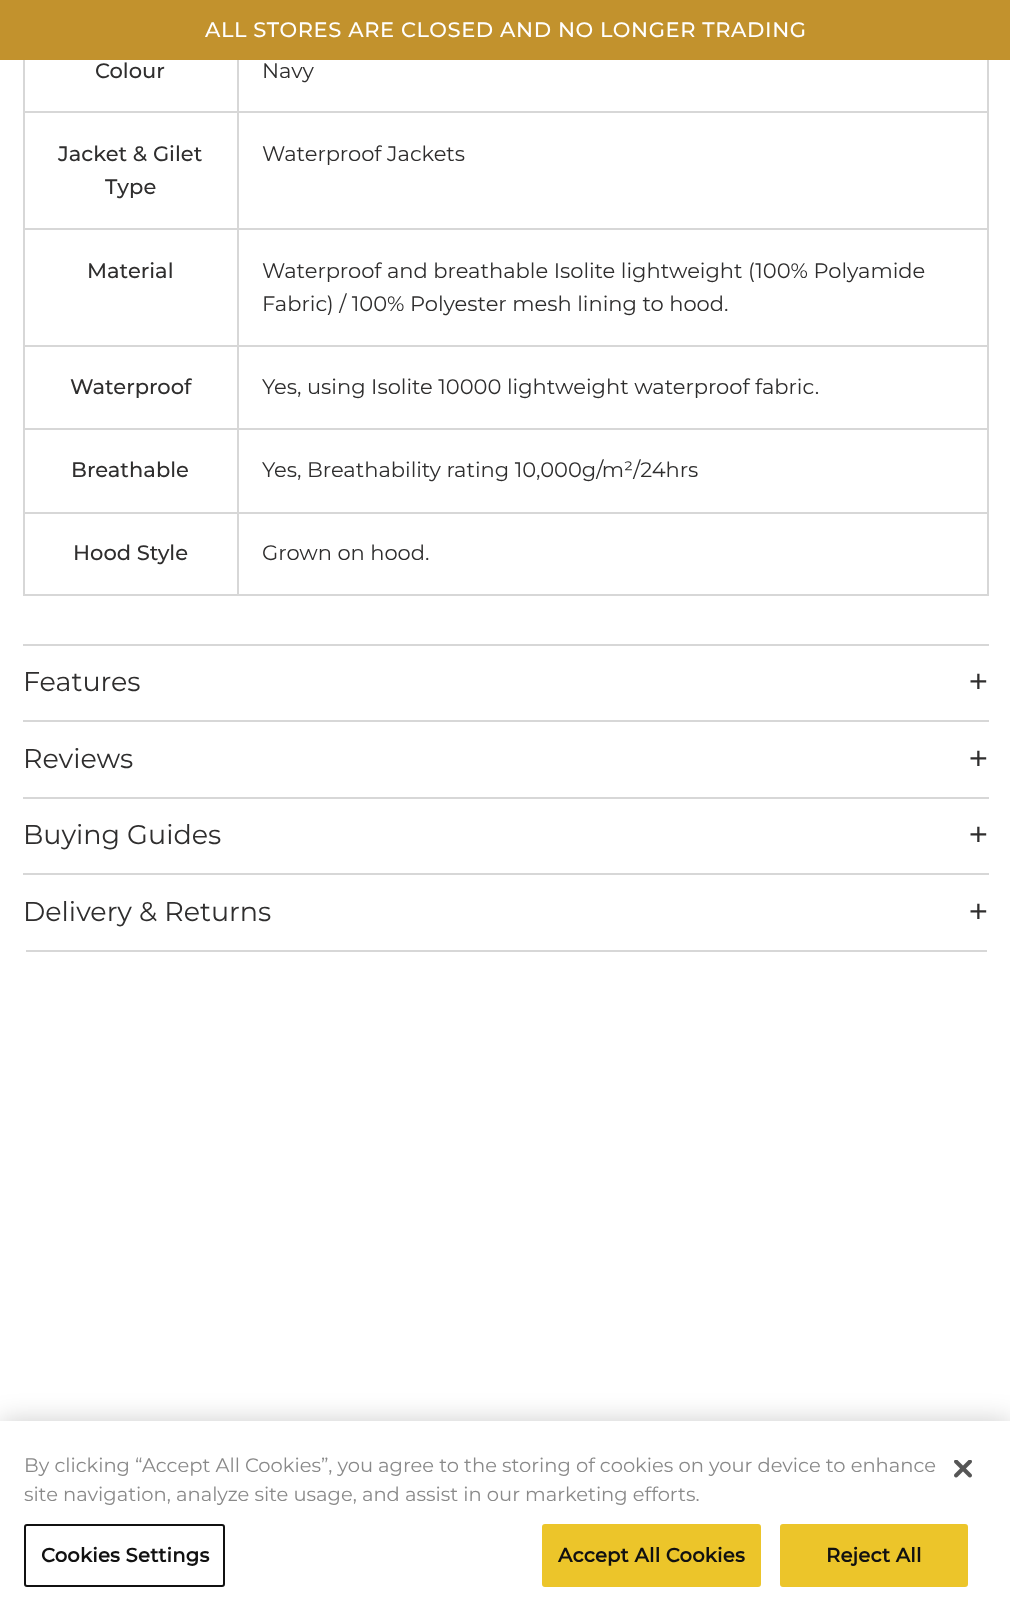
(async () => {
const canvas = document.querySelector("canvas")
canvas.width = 1010
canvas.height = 1616
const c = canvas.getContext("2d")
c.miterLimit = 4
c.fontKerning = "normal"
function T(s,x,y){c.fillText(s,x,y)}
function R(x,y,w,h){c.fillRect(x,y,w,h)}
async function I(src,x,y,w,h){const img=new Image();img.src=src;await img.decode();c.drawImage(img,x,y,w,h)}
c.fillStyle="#fff"
R(0,0,1010,1616)
c.fillStyle="#c2922d"
R(0,0,1010,60)
c.letterSpacing="0.6px"
c.font="500 21px Montserrat"
c.fillStyle="#fff"
T("ALL STORES ARE CLOSED AND NO LONGER TRADING",205,37)
c.fillStyle="#d7d7d7"
R(23,644,966,2)
R(987,60,2,536)
R(23,594,966,2)
R(23,60,2,536)
R(23,111,966,2)
c.letterSpacing="0px"
c.fillStyle="#2f2e2e"
T("Colour",95,78)
c.font="21px Montserrat"
T("Navy",262,78)
c.fillStyle="#d7d7d7"
R(23,228,966,2)
c.font="500 21px Montserrat"
c.fillStyle="#2f2e2e"
T("Jacket & Gilet",58,161)
T("Type",105,194)
c.font="21px Montserrat"
T("Waterproof Jackets",262,161)
c.fillStyle="#d7d7d7"
R(23,345,966,2)
c.font="500 21px Montserrat"
c.fillStyle="#2f2e2e"
T("Material",87,278)
c.font="21px Montserrat"
T("Waterproof and breathable Isolite lightweight (100% Polyamide",262,278)
T("Fabric) / 100% Polyester mesh lining to hood.",262,311)
c.fillStyle="#d7d7d7"
R(23,428,966,2)
c.font="500 21px Montserrat"
c.fillStyle="#2f2e2e"
T("Waterproof",70,394)
c.font="21px Montserrat"
T("Yes, using Isolite 10000 lightweight waterproof fabric.",262,394)
c.fillStyle="#d7d7d7"
R(23,512,966,2)
c.font="500 21px Montserrat"
c.fillStyle="#2f2e2e"
T("Breathable",71,477)
c.font="21px Montserrat"
T("Yes, Breathability rating 10,000g/m²/24hrs",262,477)
c.fillStyle="#d7d7d7"
R(237,60,2,536)
c.font="500 21px Montserrat"
c.fillStyle="#2f2e2e"
T("Hood Style",73,560)
c.font="21px Montserrat"
T("Grown on hood.",262,560)
c.fillStyle="#d7d7d7"
R(23,720,966,2)
c.font="27px Montserrat"
c.fillStyle="#2f2e2e"
T("Features",23,691)
c.font="36px Montserrat"
T("+",968,694)
c.fillStyle="#d7d7d7"
R(23,797,966,2)
c.font="27px Montserrat"
c.fillStyle="#2f2e2e"
T("Reviews",23,768)
c.font="36px Montserrat"
T("+",968,771)
c.fillStyle="#d7d7d7"
R(23,873,966,2)
c.font="27px Montserrat"
c.fillStyle="#2f2e2e"
T("Buying Guides",23,844)
c.font="36px Montserrat"
T("+",968,847)
c.fillStyle="#d7d7d7"
R(26,950,961,2)
c.font="27px Montserrat"
c.fillStyle="#2f2e2e"
T("Delivery & Returns",23,921)
c.font="36px Montserrat"
T("+",968,924)
c.fillStyle="#00000033"
c.filter="blur(13.5px)"
c.beginPath()
c.rect(0,1421,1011,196)
c.fill()
c.filter="none"
c.fillStyle="#fff"
R(0,1421,1010,195)
c.font="19.5px Montserrat"
c.fillStyle="#898989"
T("By clicking “Accept All Cookies”, you agree to the storing of cookies on your device to enhance",24,1472)
T("site navigation, analyze site usage, and assist in our marketing efforts.",24,1501)
c.beginPath()
c.roundRect(25,1525,199,61,2)
c.strokeStyle="#111"
c.lineWidth=2
c.stroke()
c.letterSpacing="0.25px"
c.font="bold 19.5px Montserrat"
c.fillStyle="#111"
T("Cookies Settings",41,1562)
c.fillStyle="#ecc52a"
c.beginPath()
c.roundRect(543,1525,217,61,2)
c.fill()
c.strokeStyle="#ecc52a"
c.stroke()
c.fillStyle="#111"
T("Accept All Cookies",558,1562)
c.fillStyle="#ecc52a"
c.beginPath()
c.roundRect(781,1525,186,61,2)
c.fill()
c.stroke()
c.fillStyle="#111"
T("Reject All",826,1562)
await I("1.png",954,1460,18,18)
})()
